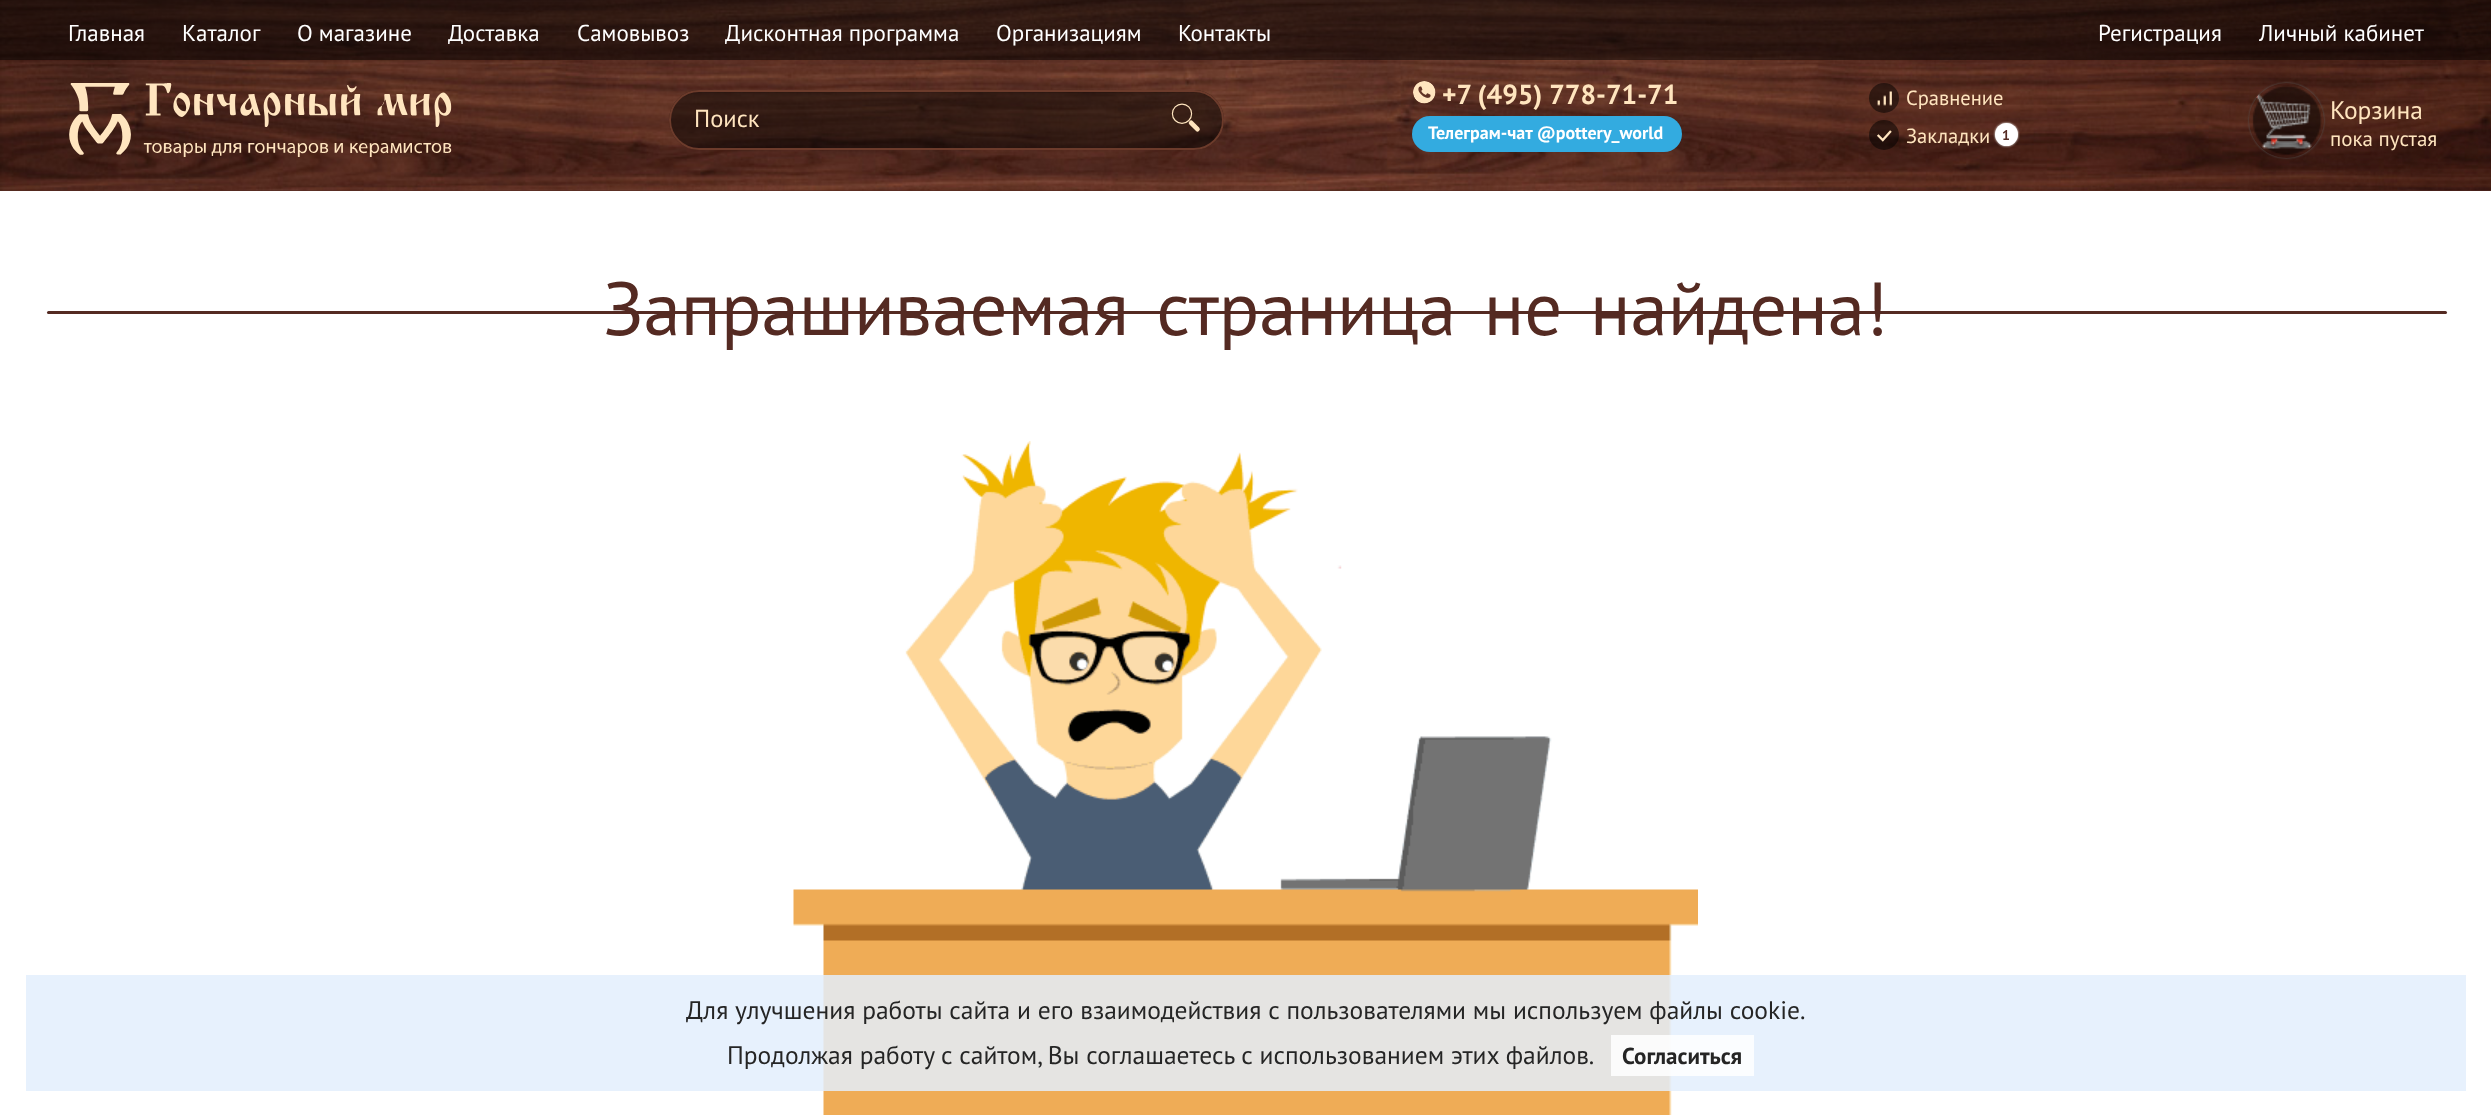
(async () => {
const canvas = document.querySelector("canvas")
canvas.width = 2491
canvas.height = 1115
const c = canvas.getContext("2d")
c.miterLimit = 4
c.fontKerning = "normal"
function T(s,x,y){c.fillText(s,x,y)}
function R(x,y,w,h){c.fillRect(x,y,w,h)}
function Q(x,y,w,h,r){c.beginPath();c.roundRect(x,y,w,h,r);c.fill()}
async function I(src,x,y,w,h){const img=new Image();img.src=src;await img.decode();c.drawImage(img,x,y,w,h)}
let path
c.fillStyle="#fff"
R(0,0,2491,1115)
c.fillStyle="#542a22"
R(0,190,2491,1)
await I("1.png",0,0,2491,191)
c.fillStyle="#00000080"
R(0,0,2491,60)
c.font="23px PT Sans"
c.fillStyle="#fff"
T("Главная",68,41)
T("Каталог",182,41)
T("О магазине",297,41)
T("Доставка",448,41)
T("Самовывоз",577,41)
T("Дисконтная программа",725,41)
T("Организациям",996,41)
T("Контакты",1178,41)
T("Регистрация",2098,41)
T("Личный кабинет",2259,41)
await I("2.png",69,83,383,74)
c.fillStyle="#00000080"
Q(669,90,555,60,30)
c.fillStyle="#00000012"
path = new Path2D("M699 93h495c16 0 28 13 28 29c0 6-2 11-5 16c4-5 6-11 6-18c0-15-13-28-29-28h-494c-10 0-19 5-24 12c5-7 14-11 23-11z")
c.fill(path)
c.beginPath()
c.roundRect(670,91,553,58,29)
c.strokeStyle="#6c3b2b"
c.lineWidth=2
c.stroke()
c.font="24.5px PT Sans"
c.fillStyle="#ffe5bf"
T("Поиск",694,127)
await I("3.png",1171,103,29,29)
await I("4.png",1413,81,23,23)
c.font="bold 27.5px PT Sans"
T("+7 (495) 778-71-71",1442,104)
c.fillStyle="#33abe0"
Q(1412,116,270,36,18)
c.font="bold 18px PT Sans"
c.fillStyle="#fff"
T("Телеграм-чат @pottery_world",1428,139)
c.fillStyle="#00000080"
c.beginPath()
c.arc(1884,98,15,0,7)
c.fill()
await I("5.png",1877,91,15,15)
c.font="20.5px PT Sans"
c.fillStyle="#ffe5bf"
T("Сравнение",1906,105)
c.fillStyle="#00000080"
c.beginPath()
c.arc(1884,135,15,0,7)
c.fill()
await I("6.png",1877,130,15,12)
c.fillStyle="#ffe5bf"
T("Закладки",1906,143)
c.fillStyle="#fff"
c.filter="blur(1px)"
c.beginPath()
c.roundRect(1995,123,23,23,11.5)
c.fill()
c.filter="none"
c.beginPath()
c.arc(2006.5,134.5,11.5,0,7)
c.fill()
c.font="bold 14px PT Sans"
c.fillStyle="#542a22"
T("1",2002,140)
c.save()
path = new Path2D("M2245 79h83v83h-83zm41.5 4c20.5 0 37.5 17 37.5 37.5c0 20.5-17 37.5-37.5 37.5c-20.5 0-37.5-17-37.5-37.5c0-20.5 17-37.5 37.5-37.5z")
c.clip(path,"evenodd")
c.fillStyle="#555"
c.filter="blur(1px)"
c.beginPath()
c.roundRect(2249,83,75,75,37.5)
c.fill()
c.filter="none"
c.restore()
await I("7.png",2252,85,70,70)
c.font="25.5px PT Sans"
c.fillStyle="#ffe5bf"
T("Корзина",2330,119)
c.font="21px PT Sans"
T("пока пустая",2330,146)
c.fillStyle="#542a22"
Q(47,311,2400,3,1.5)
c.wordSpacing="7.5px"
c.font="75px PT Sans"
T("Запрашиваемая страница не найдена!",603,335)
await I("8.png",793,441,905,674)
c.fillStyle="#e2eefdd6"
R(26,975,2440,116)
c.wordSpacing="0px"
c.font="25.5px PT Sans"
c.fillStyle="#252525"
T("Для улучшения работы сайта и его взаимодействия с пользователями мы используем файлы cookie.",686,1019)
T("Продолжая работу с сайтом, Вы соглашаетесь с использованием этих файлов.",727,1064)
c.fillStyle="#ffffffd6"
R(1611,1035,143,41)
c.font="bold 23px PT Sans"
c.fillStyle="#252525"
T("Согласиться",1622,1064)
})()
